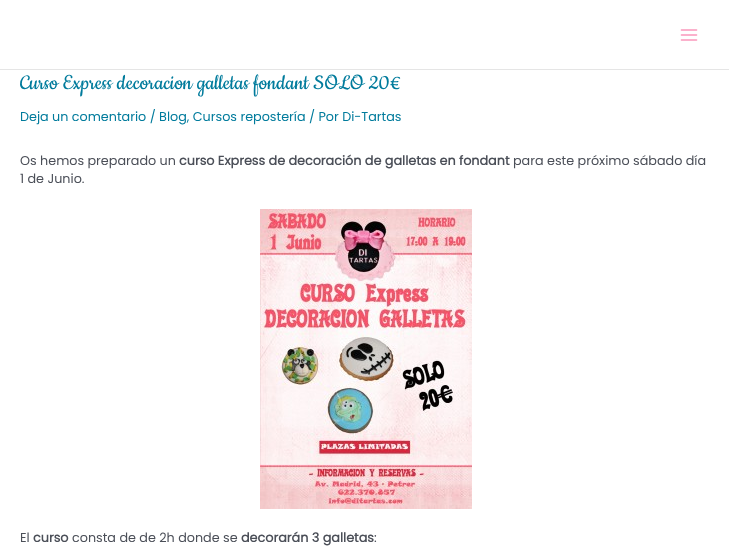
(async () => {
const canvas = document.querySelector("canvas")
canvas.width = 729
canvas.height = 552
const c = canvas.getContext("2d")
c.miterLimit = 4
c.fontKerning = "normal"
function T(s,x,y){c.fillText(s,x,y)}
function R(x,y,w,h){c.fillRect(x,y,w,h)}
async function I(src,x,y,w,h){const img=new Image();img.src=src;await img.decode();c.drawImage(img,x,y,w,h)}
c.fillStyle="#fff"
R(0,0,729,552)
c.fillStyle="#e5e5e5"
R(0,69,729,1)
await I("1.png",680,29,18,12)
c.font="23.75px Cookie"
c.fillStyle="#007b9c"
T("Curso Express decoracion galletas fondant SOLO 20€",20,89)
c.font="12.75px Poppins"
T("Deja un comentario / Blog, Cursos repostería / Por Di-Tartas",20,121)
c.fillStyle="#4b4f58"
T("Os hemos preparado un",20,165)
c.font="bold 12.75px Poppins"
T("curso Express de decoración de galletas en fondant",179,165)
c.font="12.75px Poppins"
T("para este próximo sábado día",513,165)
T("1 de Junio.",20,183)
await I("2.png",260,209,212,300)
T("El",20,542)
c.font="bold 12.75px Poppins"
T("curso",33,542)
c.font="12.75px Poppins"
T("consta de de 2h donde se",72,542)
c.font="bold 12.75px Poppins"
T("decorarán 3 galletas",241,542)
c.font="12.75px Poppins"
T(":",374,542)
})()
